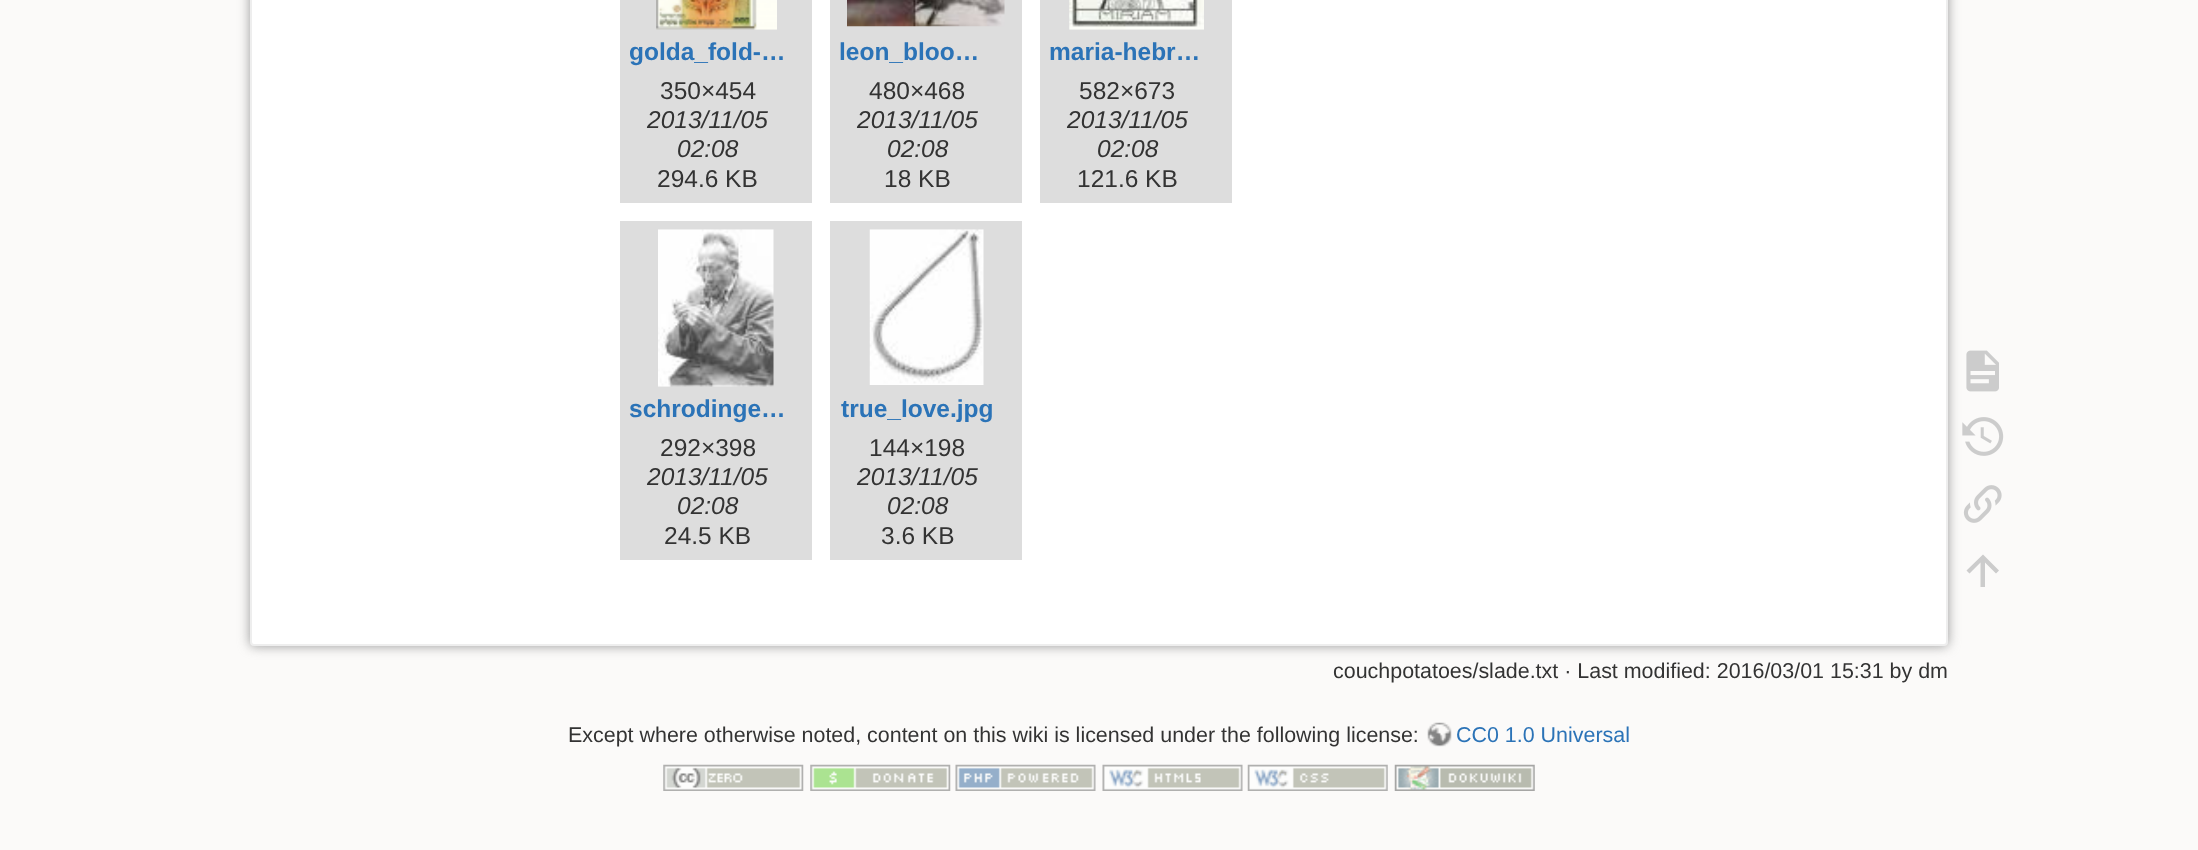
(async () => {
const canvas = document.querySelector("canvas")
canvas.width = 2198
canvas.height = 850
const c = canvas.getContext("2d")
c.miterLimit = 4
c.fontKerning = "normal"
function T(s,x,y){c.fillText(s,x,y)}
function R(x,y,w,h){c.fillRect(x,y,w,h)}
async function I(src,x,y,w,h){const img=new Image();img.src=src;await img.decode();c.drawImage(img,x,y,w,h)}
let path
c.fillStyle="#fbfaf9"
R(0,0,2198,850)
c.fillStyle="#999"
c.filter="blur(6px)"
c.beginPath()
c.roundRect(250,-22,1698,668,4)
c.fill()
c.filter="none"
c.fillStyle="#fff"
c.beginPath()
c.roundRect(251,-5,1696,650,3)
c.fill()
c.strokeStyle="#eee"
c.lineWidth=2
c.stroke()
c.fillStyle="#ddd"
R(620,0,192,203)
await I("1.png",656,0,121,30)
c.font="bold 24.5px Liberation Sans"
c.fillStyle="#2b73b7"
T("golda_fold-…",629,60)
c.font="24.5px Liberation Sans"
c.fillStyle="#333"
T("350×454",660,99)
c.font="italic 24.5px Liberation Sans"
T("2013/11/05",647,128)
T("02:08",677,157)
c.font="24.5px Liberation Sans"
T("294.6 KB",657,187)
c.fillStyle="#ddd"
R(830,0,192,203)
await I("2.png",847,0,158,27)
c.font="bold 24.5px Liberation Sans"
c.fillStyle="#2b73b7"
T("leon_bloo…",839,60)
c.font="24.5px Liberation Sans"
c.fillStyle="#333"
T("480×468",869,99)
c.font="italic 24.5px Liberation Sans"
T("2013/11/05",857,128)
T("02:08",887,157)
c.font="24.5px Liberation Sans"
T("18 KB",884,187)
c.fillStyle="#ddd"
R(1040,0,192,203)
await I("3.png",1069,0,135,30)
c.font="bold 24.5px Liberation Sans"
c.fillStyle="#2b73b7"
T("maria-hebr…",1049,60)
c.font="24.5px Liberation Sans"
c.fillStyle="#333"
T("582×673",1079,99)
c.font="italic 24.5px Liberation Sans"
T("2013/11/05",1067,128)
T("02:08",1097,157)
c.font="24.5px Liberation Sans"
T("121.6 KB",1077,187)
c.fillStyle="#ddd"
R(620,221,192,339)
await I("4.png",658,229,116,158)
c.font="bold 24.5px Liberation Sans"
c.fillStyle="#2b73b7"
T("schrodinge…",629,417)
c.font="24.5px Liberation Sans"
c.fillStyle="#333"
T("292×398",660,456)
c.font="italic 24.5px Liberation Sans"
T("2013/11/05",647,485)
T("02:08",677,514)
c.font="24.5px Liberation Sans"
T("24.5 KB",664,544)
c.fillStyle="#ddd"
R(830,221,192,339)
await I("5.png",869,229,115,156)
c.font="bold 24.5px Liberation Sans"
c.fillStyle="#2b73b7"
T("true_love.jpg",841,417)
c.font="24.5px Liberation Sans"
c.fillStyle="#333"
T("144×198",869,456)
c.font="italic 24.5px Liberation Sans"
T("2013/11/05",857,485)
T("02:08",887,514)
c.font="24.5px Liberation Sans"
T("3.6 KB",881,544)
c.font="21.45px Liberation Sans"
T("couchpotatoes/slade.txt · Last modified: 2016/03/01 15:31 by dm",1333,678)
await I("6.png",1966,350,33,42)
await I("7.png",1962,417,42,39)
await I("8.png",1963,485,39,38)
c.fillStyle="#ccc"
path = new Path2D("M1985 587h-4.5v-24.5l-11 11l-3-3l16.5-16l16 16l-3 3l-11-11z")
c.fill(path)
c.fillStyle="#333"
T("Except where otherwise noted, content on this wiki is licensed under the following license:",568,742)
await I("9.png",1427,722,25,25)
c.fillStyle="#2b73b7"
T("CC0 1.0 Universal",1456,742)
await I("10.png",663,764,141,27)
await I("11.png",810,764,141,27)
await I("12.png",955,764,141,27)
await I("13.png",1102,764,141,27)
await I("14.png",1247,764,141,27)
await I("15.png",1394,764,141,27)
})()
